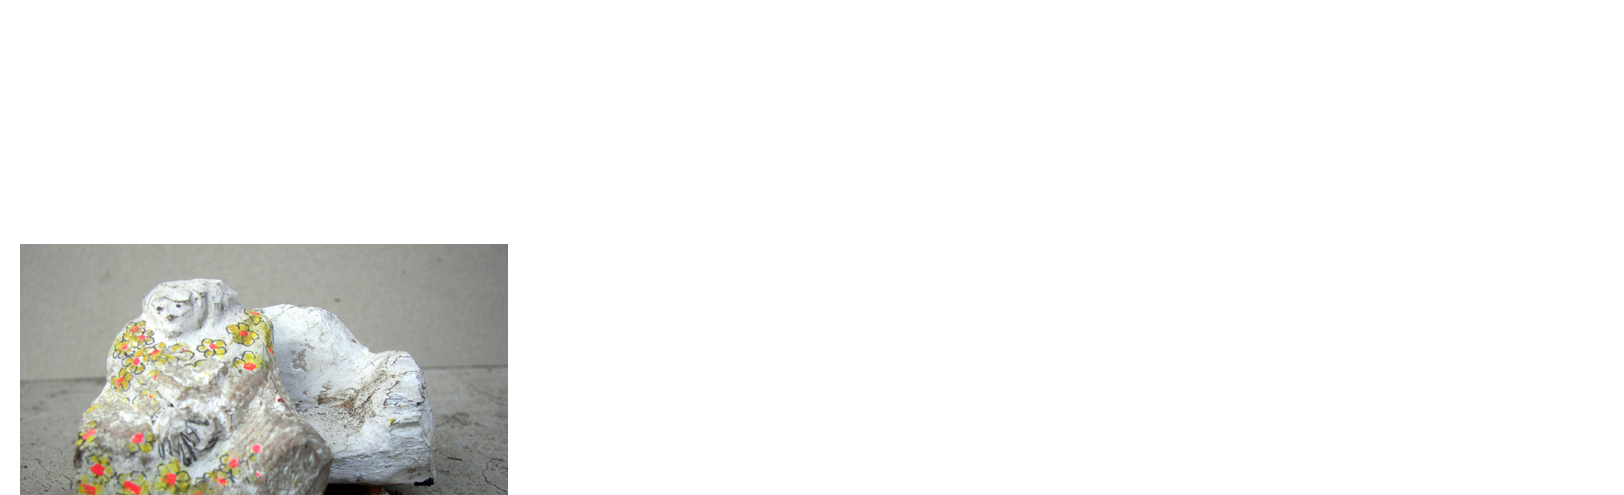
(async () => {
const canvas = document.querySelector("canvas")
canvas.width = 1624
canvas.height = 495
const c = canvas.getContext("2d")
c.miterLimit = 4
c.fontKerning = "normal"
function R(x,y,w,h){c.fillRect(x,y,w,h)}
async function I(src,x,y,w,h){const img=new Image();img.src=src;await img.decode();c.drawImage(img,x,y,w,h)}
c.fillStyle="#fff"
R(0,0,1624,495)
await I("1.png",20,244,488,251)
})()
